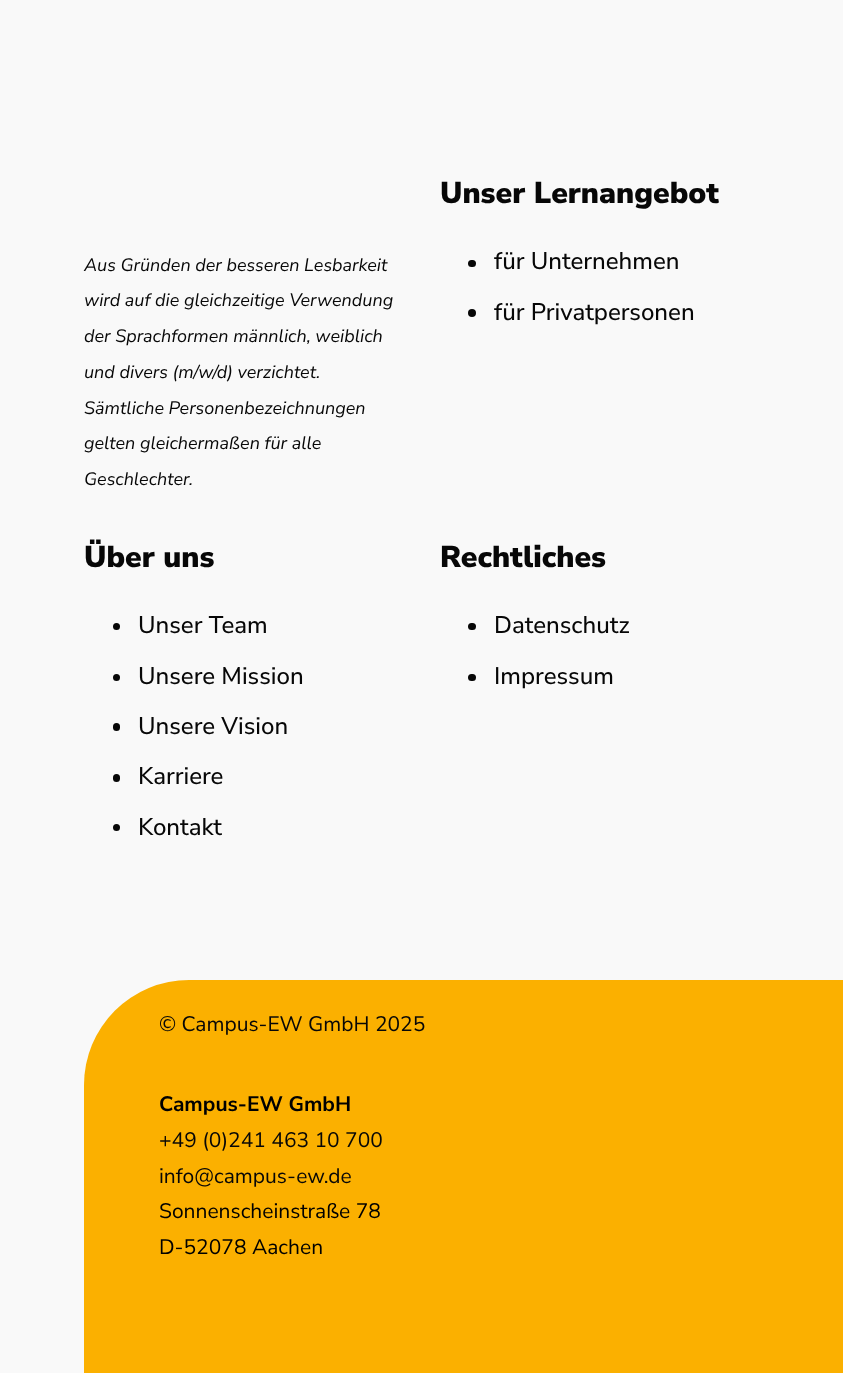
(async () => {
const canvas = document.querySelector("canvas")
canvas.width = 843
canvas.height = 1373
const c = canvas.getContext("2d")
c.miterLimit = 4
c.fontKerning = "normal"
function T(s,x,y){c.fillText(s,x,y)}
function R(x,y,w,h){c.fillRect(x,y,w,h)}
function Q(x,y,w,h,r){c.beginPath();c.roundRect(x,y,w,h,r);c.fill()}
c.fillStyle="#f9f9f9"
R(0,0,843,1373)
c.font="italic 18px Nunito Sans"
c.fillStyle="#070707"
T("Aus Gründen der besseren Lesbarkeit",84,271)
T("wird auf die gleichzeitige Verwendung",84,306)
T("der Sprachformen männlich, weiblich",84,342)
T("und divers (m/w/d) verzichtet.",84,378)
T("Sämtliche Personenbezeichnungen",84,414)
T("gelten gleichermaßen für alle",84,449)
T("Geschlechter.",84,485)
c.font="900 30px Nunito Sans"
T("Unser Lernangebot",440,203)
Q(468,260,8,7,3.5)
c.font="500 24px Nunito Sans"
T("für Unternehmen",494,269)
c.beginPath()
c.arc(472,313,4,0,7)
c.fill()
T("für Privatpersonen",494,320)
c.font="900 30px Nunito Sans"
T("Über uns",84,567)
c.beginPath()
c.arc(116.5,626.5,3.5,0,7)
c.fill()
c.font="500 24px Nunito Sans"
T("Unser Team",138,633)
c.beginPath()
c.arc(116.5,677.5,3.5,0,7)
c.fill()
T("Unsere Mission",138,684)
Q(113,723,7,8,3.5)
T("Unsere Vision",138,734)
Q(113,774,7,8,3.5)
T("Karriere",138,784)
c.beginPath()
c.arc(116.5,827.5,3.5,0,7)
c.fill()
T("Kontakt",138,835)
c.font="900 30px Nunito Sans"
T("Rechtliches",440,567)
Q(468,623,8,7,3.5)
c.font="500 24px Nunito Sans"
T("Datenschutz",494,633)
Q(468,674,8,7,3.5)
T("Impressum",494,684)
c.fillStyle="#fbb000"
c.beginPath()
c.roundRect(84,980,759,393,[105,0,0,0])
c.fill()
c.font="21px Nunito Sans"
c.fillStyle="#070707"
T("© Campus-EW GmbH 2025",159,1031)
c.font="bold 21px Nunito Sans"
c.fillStyle="#000"
T("Campus-EW GmbH",159,1111)
c.font="21px Nunito Sans"
c.fillStyle="#070707"
T("+49 (0)241 463 10 700",159,1147)
T("info@campus-ew.de",159,1183)
c.fillStyle="#000"
T("Sonnenscheinstraße 78",159,1218)
T("D-52078 Aachen",159,1254)
})()
